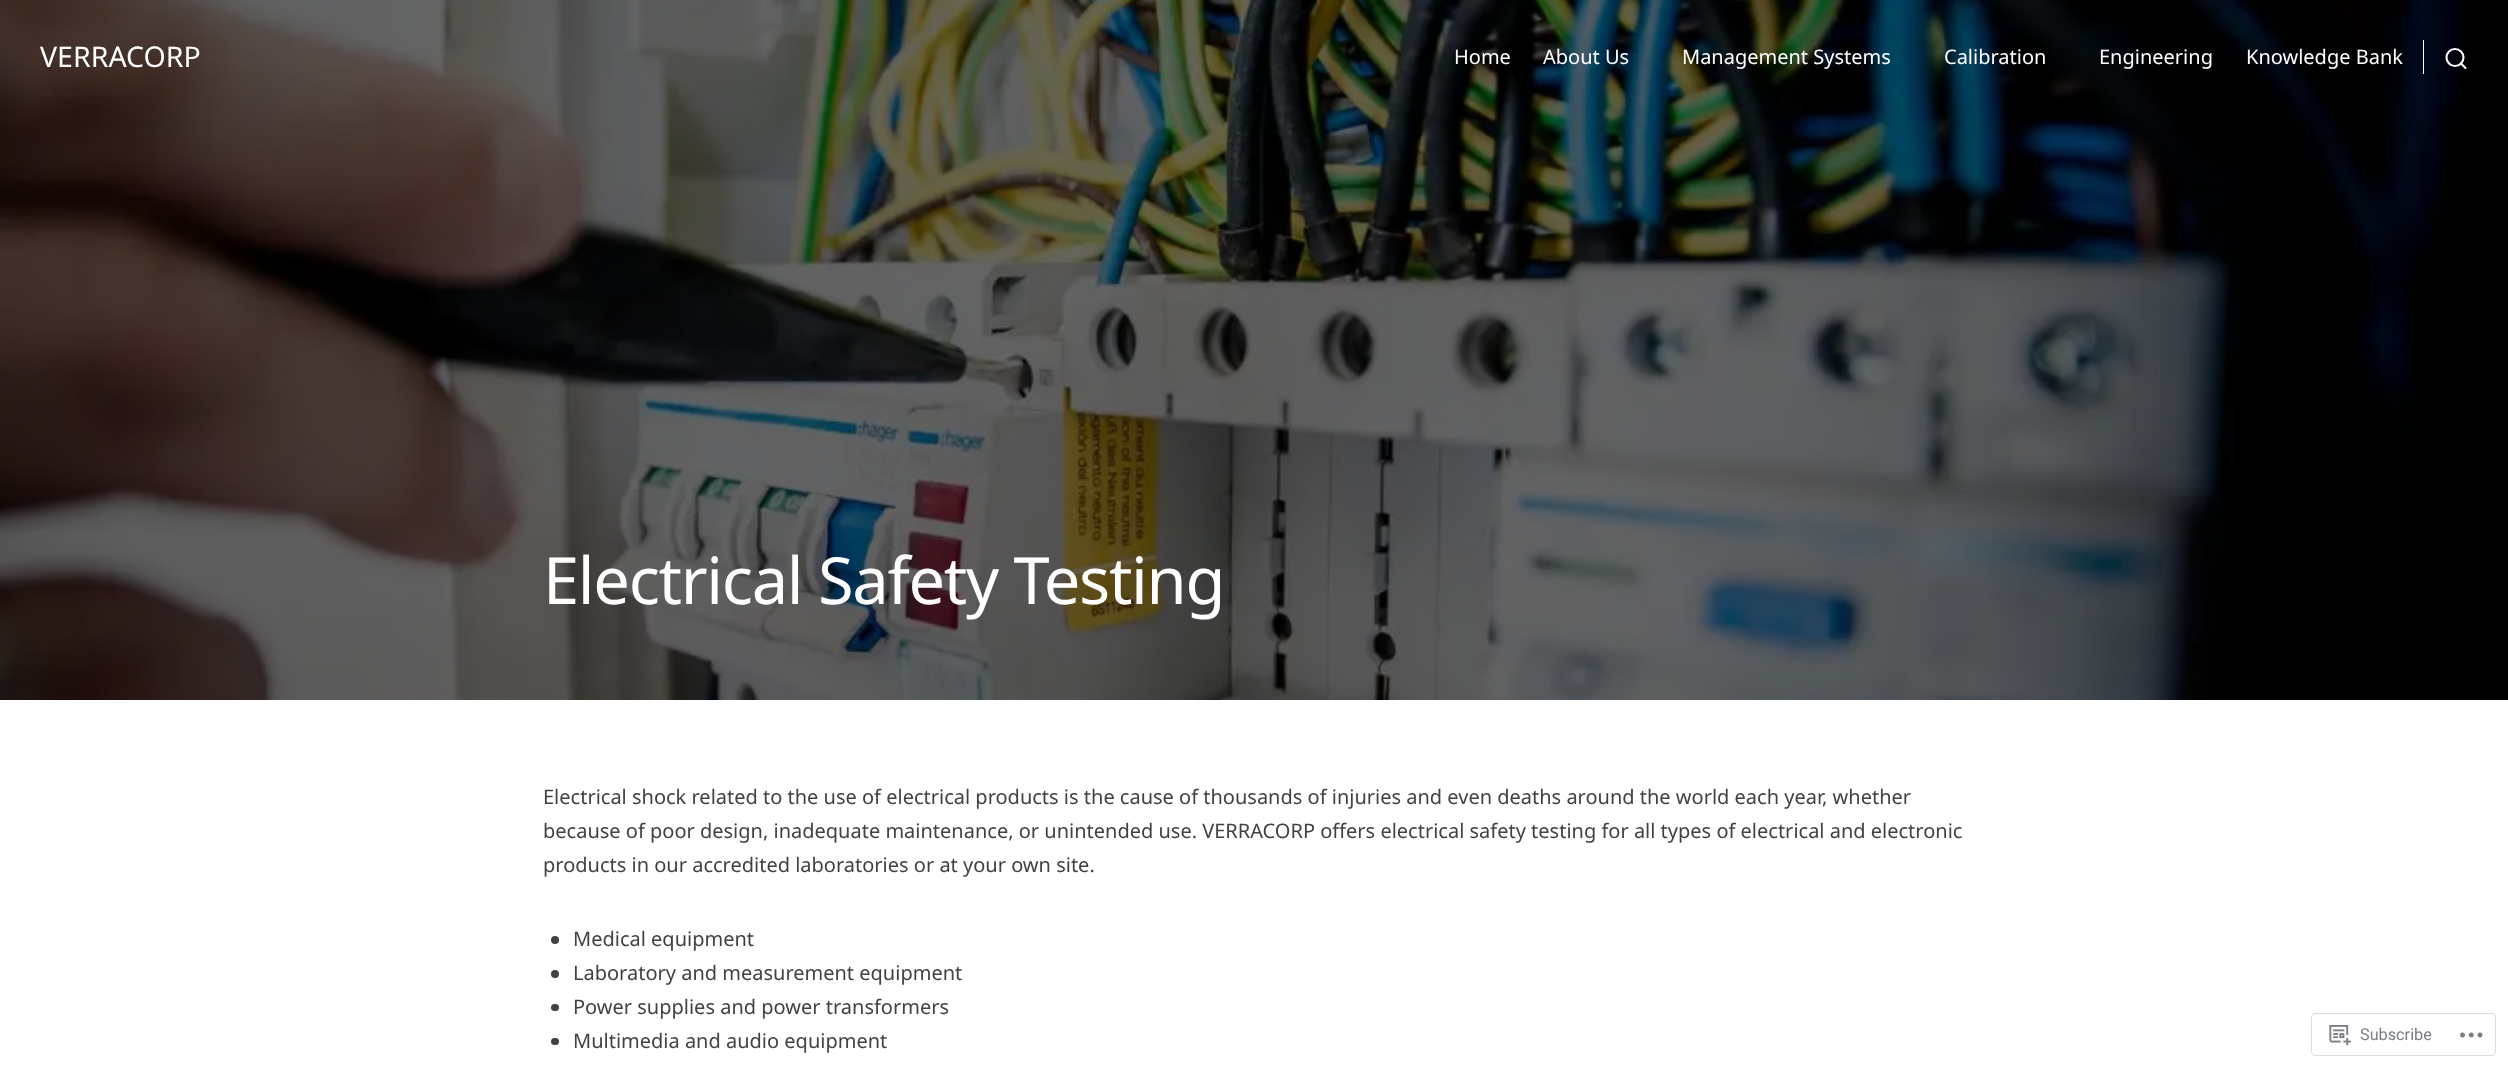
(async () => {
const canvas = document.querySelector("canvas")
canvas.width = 2508
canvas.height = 1068
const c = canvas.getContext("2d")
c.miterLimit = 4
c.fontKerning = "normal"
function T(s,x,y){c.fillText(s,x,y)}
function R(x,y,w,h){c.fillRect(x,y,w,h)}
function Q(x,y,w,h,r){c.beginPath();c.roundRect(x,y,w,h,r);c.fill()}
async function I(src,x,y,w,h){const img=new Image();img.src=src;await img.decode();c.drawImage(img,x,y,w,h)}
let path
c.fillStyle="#fff"
R(0,0,2508,1068)
await I("1.png",0,0,2508,700)
c.font="28.5px Noto Sans"
T("VERRACORP",40,67)
c.font="20px Noto Sans"
T("Home",1454,64)
T("About Us",1543,64)
T("Management Systems",1682,64)
T("Calibration",1944,64)
T("Engineering",2099,64)
T("Knowledge Bank",2246,64)
R(2423,40,1,34)
c.beginPath()
c.arc(2455,57.5,8.5,0,7)
c.strokeStyle="#fff"
c.lineWidth=2.1
c.stroke()
path = new Path2D("M2465.5 68l-4.5-4.5")
c.lineCap="round"
c.lineJoin="round"
c.stroke(path)
c.letterSpacing="-1.3px"
c.font="65px Noto Sans"
T("Electrical Safety Testing",543,604)
c.letterSpacing="0px"
c.font="20px Noto Sans"
c.fillStyle="#424242"
T("Electrical shock related to the use of electrical products is the cause of thousands of injuries and even deaths around the world each year, whether",543,804)
T("because of poor design, inadequate maintenance, or unintended use. VERRACORP offers electrical safety testing for all types of electrical and electronic",543,838)
T("products in our accredited laboratories or at your own site.",543,872)
c.beginPath()
c.arc(555,940,4,0,7)
c.fill()
T("Medical equipment",573,946)
c.beginPath()
c.arc(555,974,4,0,7)
c.fill()
T("Laboratory and measurement equipment",573,980)
Q(551,1004,8,7,3.5)
T("Power supplies and power transformers",573,1014)
Q(551,1038,8,7,3.5)
T("Multimedia and audio equipment",573,1048)
c.beginPath()
c.roundRect(2311.5,1013.5,184,42,3.5)
c.strokeStyle="#dddddf"
c.lineWidth=1
c.lineJoin="miter"
c.stroke()
await I("2.png",2329,1025,22,21)
c.font="16.25px Roboto"
c.fillStyle="#7b7f85"
T("Subscribe",2360,1040)
await I("3.png",2460,1032,23,6)
})()
